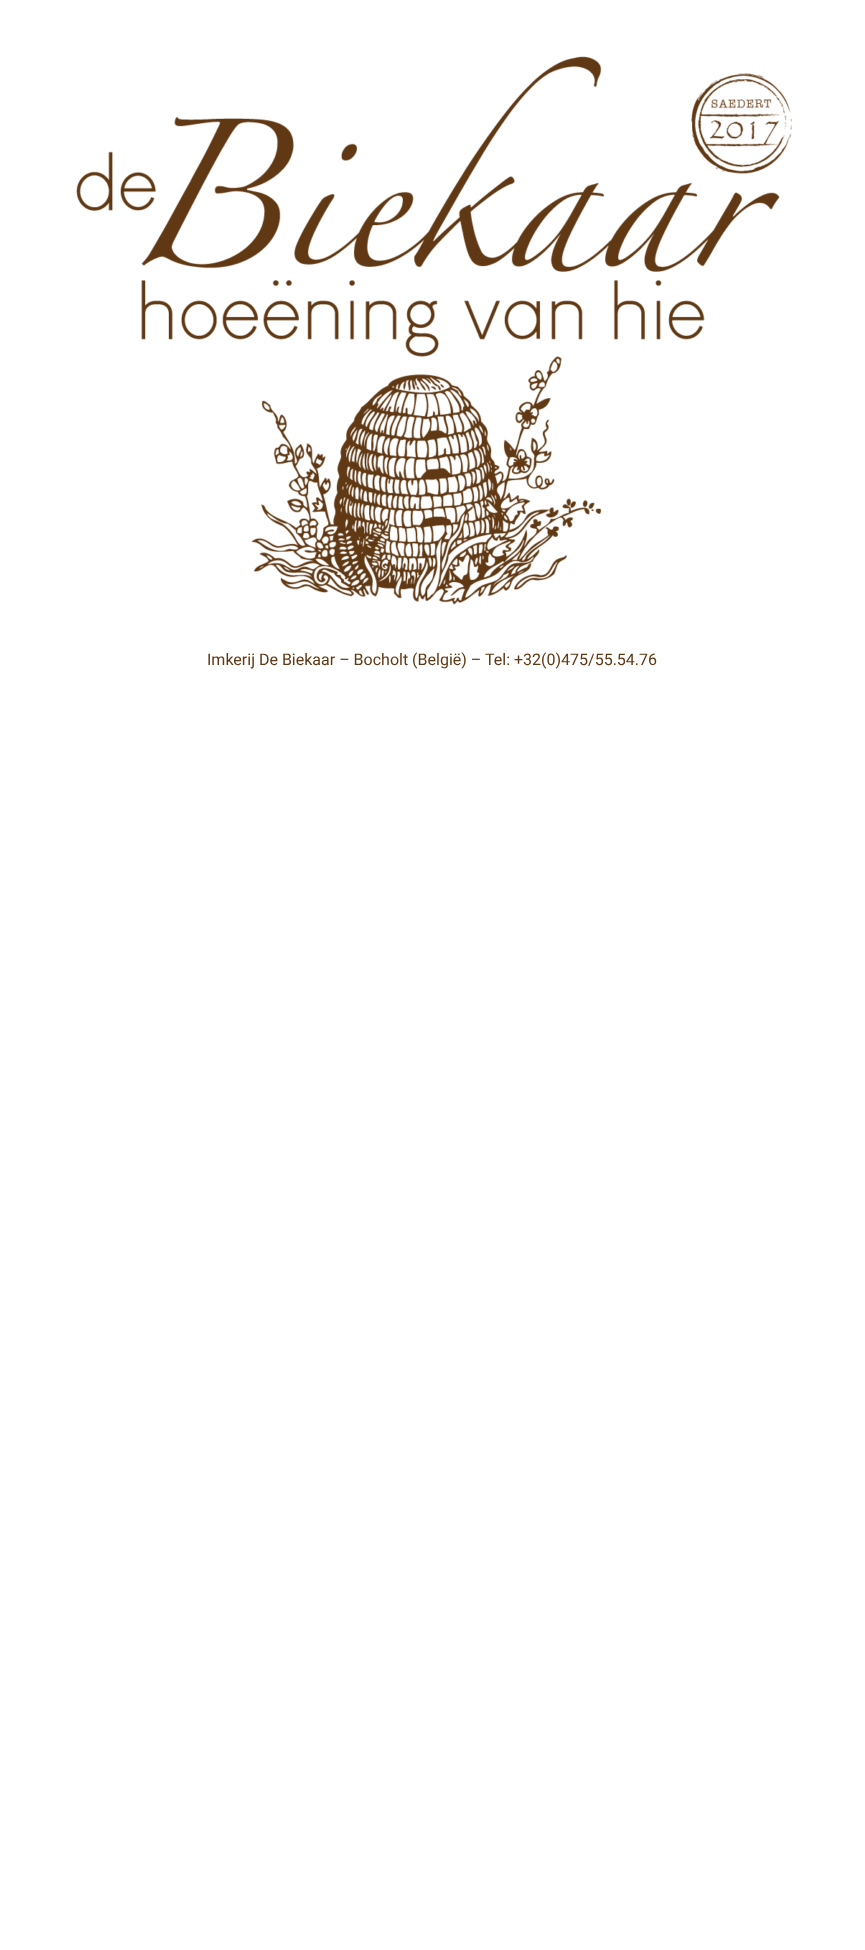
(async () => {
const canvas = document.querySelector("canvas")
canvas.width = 865
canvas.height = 1950
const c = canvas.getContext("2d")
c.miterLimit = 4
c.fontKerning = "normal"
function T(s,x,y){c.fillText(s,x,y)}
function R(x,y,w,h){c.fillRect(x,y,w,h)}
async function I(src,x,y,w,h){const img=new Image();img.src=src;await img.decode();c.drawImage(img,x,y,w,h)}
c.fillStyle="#fff"
R(0,0,865,1950)
await I("1.png",76,56,716,549)
c.font="16px Roboto"
c.fillStyle="#603813"
T("Imkerij De Biekaar – Bocholt (België) – Tel: +32(0)475/55.54.76",207,665)
})()
